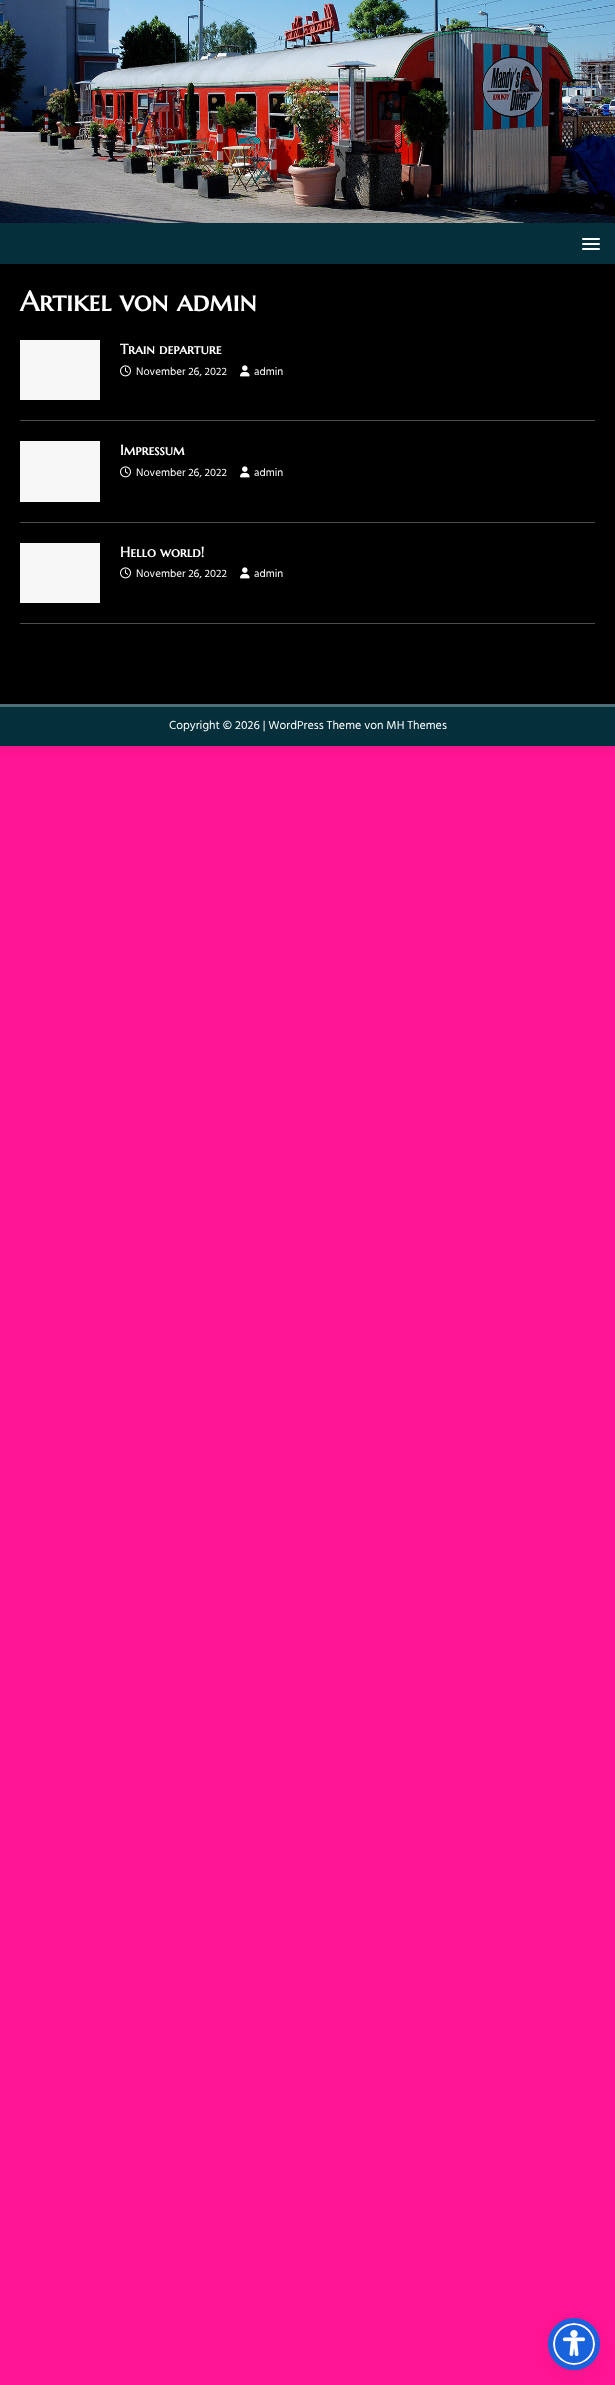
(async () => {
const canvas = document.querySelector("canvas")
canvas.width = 615
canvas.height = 2385
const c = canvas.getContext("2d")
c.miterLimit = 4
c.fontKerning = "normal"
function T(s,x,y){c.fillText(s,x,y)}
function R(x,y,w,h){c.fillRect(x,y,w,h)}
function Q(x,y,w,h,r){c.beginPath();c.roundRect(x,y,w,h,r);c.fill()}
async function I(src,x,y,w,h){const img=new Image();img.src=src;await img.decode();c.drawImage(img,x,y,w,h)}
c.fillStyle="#ff1493"
R(0,0,615,2385)
c.fillStyle="#3232322b"
c.filter="blur(5px)"
c.beginPath()
c.rect(0,0,615,746)
c.fill()
c.filter="none"
await I("1.png",0,0,615,223)
c.fillStyle="#052f3b"
R(0,223,615,41)
c.fillStyle="#fff"
Q(582,238,18,2,1)
Q(582,243,18,2,1)
Q(582,248,18,2,1)
c.fillStyle="#000"
R(0,264,615,440)
c.font="bold 28px Marcellus SC"
c.fillStyle="#fff"
T("Artikel von admin",20,311)
c.fillStyle="#4d4d4d"
R(20,420,575,1)
c.fillStyle="#f7f7f7"
R(20,340,80,60)
c.font="bold 14px Marcellus SC"
c.fillStyle="#fff"
T("Train departure",120,354)
await I("2.png",120,365,11,12)
c.font="11px Hind"
T("November 26, 2022",136,375)
await I("3.png",240,365,10,12)
T("admin",254,375)
c.fillStyle="#4d4d4d"
R(20,522,575,1)
c.fillStyle="#f7f7f7"
R(20,441,80,61)
c.font="bold 14px Marcellus SC"
c.fillStyle="#fff"
T("Impressum",120,455)
await I("2.png",120,466,11,12)
c.font="11px Hind"
T("November 26, 2022",136,476)
await I("3.png",240,466,10,12)
T("admin",254,476)
c.fillStyle="#4d4d4d"
R(20,623,575,1)
c.fillStyle="#f7f7f7"
R(20,543,80,60)
c.font="bold 14px Marcellus SC"
c.fillStyle="#fff"
T("Hello world!",120,557)
await I("2.png",120,567,11,12)
c.font="11px Hind"
T("November 26, 2022",136,577)
await I("3.png",240,567,10,12)
T("admin",254,577)
c.fillStyle="#052f3b"
R(0,707,615,39)
c.fillStyle="#506d76"
R(0,704,615,3)
c.font="12px Hind"
c.fillStyle="#fff"
T("Copyright © 2026 | WordPress Theme von MH Themes",169,729)
c.fillStyle="#5d649433"
c.filter="blur(2px)"
c.beginPath()
c.roundRect(553,2325,42,42,21)
c.fill()
c.filter="none"
c.fillStyle="#252c6126"
c.filter="blur(7.5px)"
c.beginPath()
c.roundRect(553,2328,42,42,21)
c.fill()
c.filter="none"
c.fillStyle="#1863dc"
c.beginPath()
c.arc(574,2344,20,0,7)
c.fill()
c.strokeStyle="#fff"
c.lineWidth=2
c.stroke()
c.beginPath()
c.arc(574,2344,23.5,0,7)
c.strokeStyle="#1863dc"
c.lineWidth=5
c.stroke()
await I("4.png",562,2330,24,26)
})()
